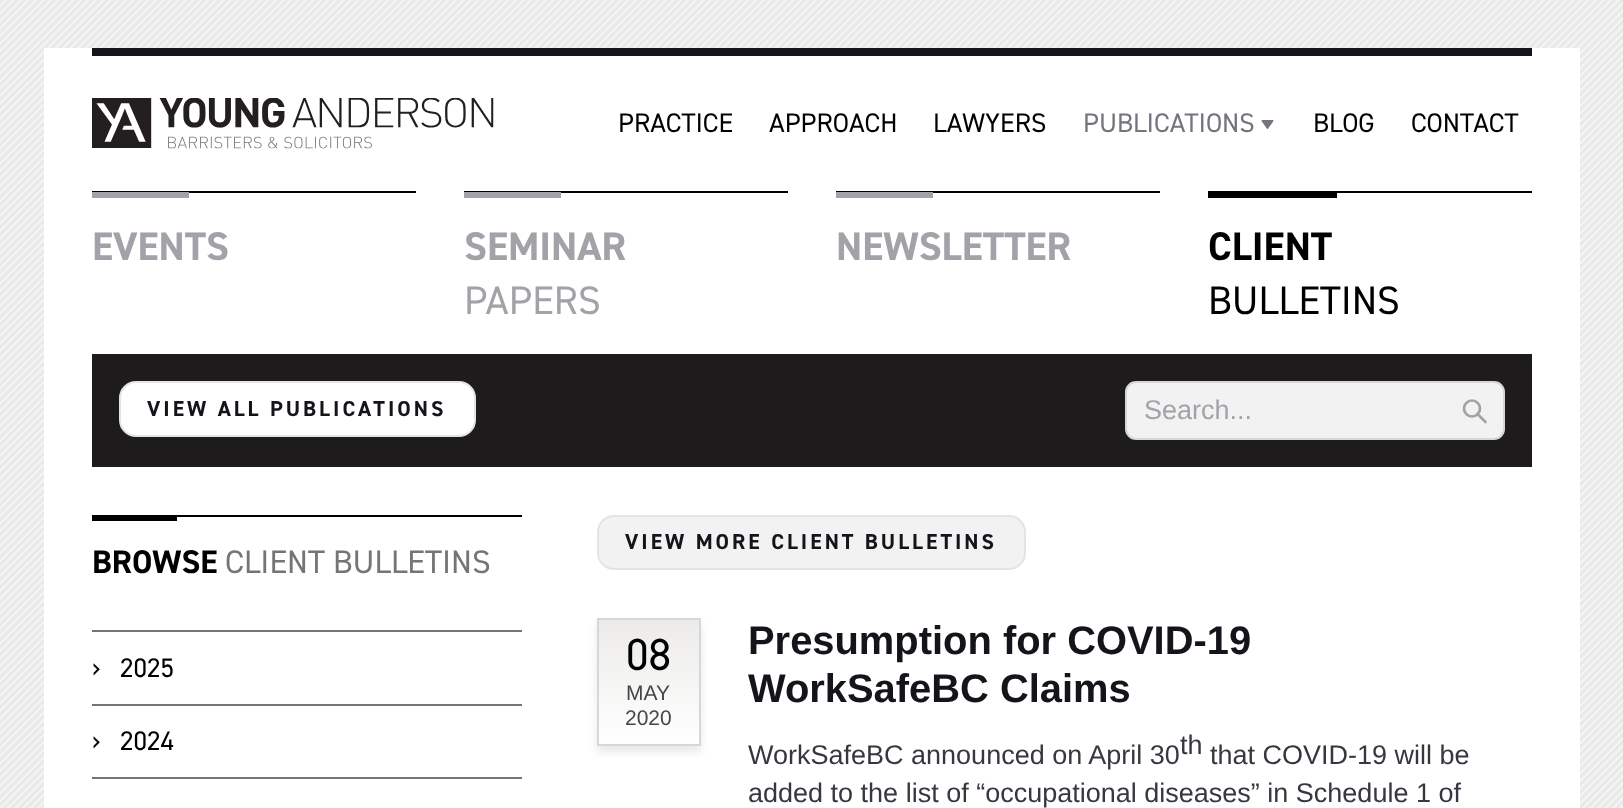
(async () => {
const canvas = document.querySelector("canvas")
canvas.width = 1623
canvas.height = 808
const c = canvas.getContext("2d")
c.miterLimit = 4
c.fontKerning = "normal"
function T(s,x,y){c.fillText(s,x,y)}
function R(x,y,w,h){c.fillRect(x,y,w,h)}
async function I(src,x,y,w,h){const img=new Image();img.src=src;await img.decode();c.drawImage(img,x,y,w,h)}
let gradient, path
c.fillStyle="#fff"
R(0,0,1623,808)
await I("1.png",0,0,1623,808)
R(44,48,1536,760)
c.fillStyle="#14151a"
R(92,48,1440,8)
await I("2.png",92,98,402,51)
c.font="27px 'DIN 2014'"
c.fillStyle="#000"
T("PRACTICE",618,132)
T("APPROACH",769,132)
T("LAWYERS",933,132)
c.fillStyle="#73757d"
T("PUBLICATIONS",1083,132)
await I("3.png",1261,120,13,9)
c.fillStyle="#000"
T("BLOG",1313,132)
T("CONTACT",1411,132)
R(92,191,324,2)
c.fillStyle="#a2a2a9"
R(92,192,97,6)
c.font="bold 39.9px 'DIN 2014'"
T("EVENTS",92,260)
c.fillStyle="#000"
R(464,191,324,2)
c.fillStyle="#a2a2a9"
R(464,192,97,6)
T("SEMINAR",464,260)
c.font="39.9px 'DIN 2014'"
T("PAPERS",464,314)
c.fillStyle="#000"
R(836,191,324,2)
c.fillStyle="#a2a2a9"
R(836,192,97,6)
c.font="bold 39.9px 'DIN 2014'"
T("NEWSLETTER",836,260)
c.fillStyle="#000"
R(1208,191,324,2)
R(1208,193,129,5)
T("CLIENT",1208,260)
c.font="39.9px 'DIN 2014'"
T("BULLETINS",1208,314)
c.fillStyle="#1d1b1b"
R(92,354,1440,113)
c.fillStyle="#fff"
c.beginPath()
c.roundRect(120,382,355,54,16)
c.fill()
c.strokeStyle="#e4e4e7"
c.lineWidth=2
c.stroke()
c.letterSpacing="3px"
c.font="bold 21.6px 'DIN 2014'"
c.fillStyle="#14151a"
T("VIEW ALL PUBLICATIONS",147,416)
c.fillStyle="#f2f2f3"
c.beginPath()
c.roundRect(1126,382,378,57,10)
c.fill()
c.strokeStyle="#d7d7da"
c.stroke()
c.letterSpacing="0px"
c.font="27px Liberation Sans"
c.fillStyle="#a2a2a9"
T("Search...",1144,419)
c.beginPath()
c.arc(1472,408.5,8,0,7)
c.strokeStyle="#a2a2a9"
c.lineWidth=2.7
c.stroke()
path = new Path2D("M1477.5 414l8 8")
c.lineCap="round"
c.lineJoin="round"
c.stroke(path)
c.fillStyle="#000"
R(92,515,430,2)
R(92,517,85,4)
c.font="bold 32.75px 'DIN 2014'"
T("BROWSE",92,573)
c.font="32.75px 'DIN 2014'"
c.fillStyle="#757575"
T("CLIENT BULLETINS",225,573)
c.fillStyle="#73757d"
R(92,630,430,2)
R(92,704,430,2)
c.font="27px 'DIN 2014'"
c.fillStyle="#000"
T("›",92,677)
T("2025",120,677)
c.fillStyle="#73757d"
R(92,777,430,2)
c.fillStyle="#000"
T("›",92,750)
T("2024",120,750)
c.fillStyle="#f2f2f3"
c.beginPath()
c.roundRect(598,516,427,53,16)
c.fill()
c.strokeStyle="#e4e4e7"
c.lineWidth=2
c.lineJoin="miter"
c.stroke()
c.letterSpacing="3px"
c.font="bold 21.6px 'DIN 2014'"
c.fillStyle="#14151a"
T("VIEW MORE CLIENT BULLETINS",625,549)
c.fillStyle="#00000017"
c.filter="blur(4.5px)"
c.beginPath()
c.rect(597,624,104,128)
c.fill()
c.filter="none"
gradient = c.createLinearGradient(649,744,649,620)
gradient.addColorStop(0,"#fff")
gradient.addColorStop(1,"#ecebe9")
c.fillStyle = gradient
R(599,620,100,124)
c.strokeStyle="#d7d7da"
c.strokeRect(598,619,102,126)
c.letterSpacing="0px"
c.font="45px 'DIN 2014'"
c.fillStyle="#000"
T("08",626,670)
c.font="21px Liberation Sans"
c.fillStyle="#474747"
T("MAY",626,700)
T("2020",625,725)
c.font="bold 39.9px Liberation Sans"
c.fillStyle="#14151a"
T("Presumption for COVID-19",748,654)
T("WorkSafeBC Claims",748,702)
c.font="27px Liberation Sans"
c.fillStyle="#37383f"
T("WorkSafeBC announced on April 30",748,764)
T("th",1180,754)
T("that COVID-19 will be",1210,764)
T("added to the list of “occupational diseases” in Schedule 1 of",748,802)
})()
